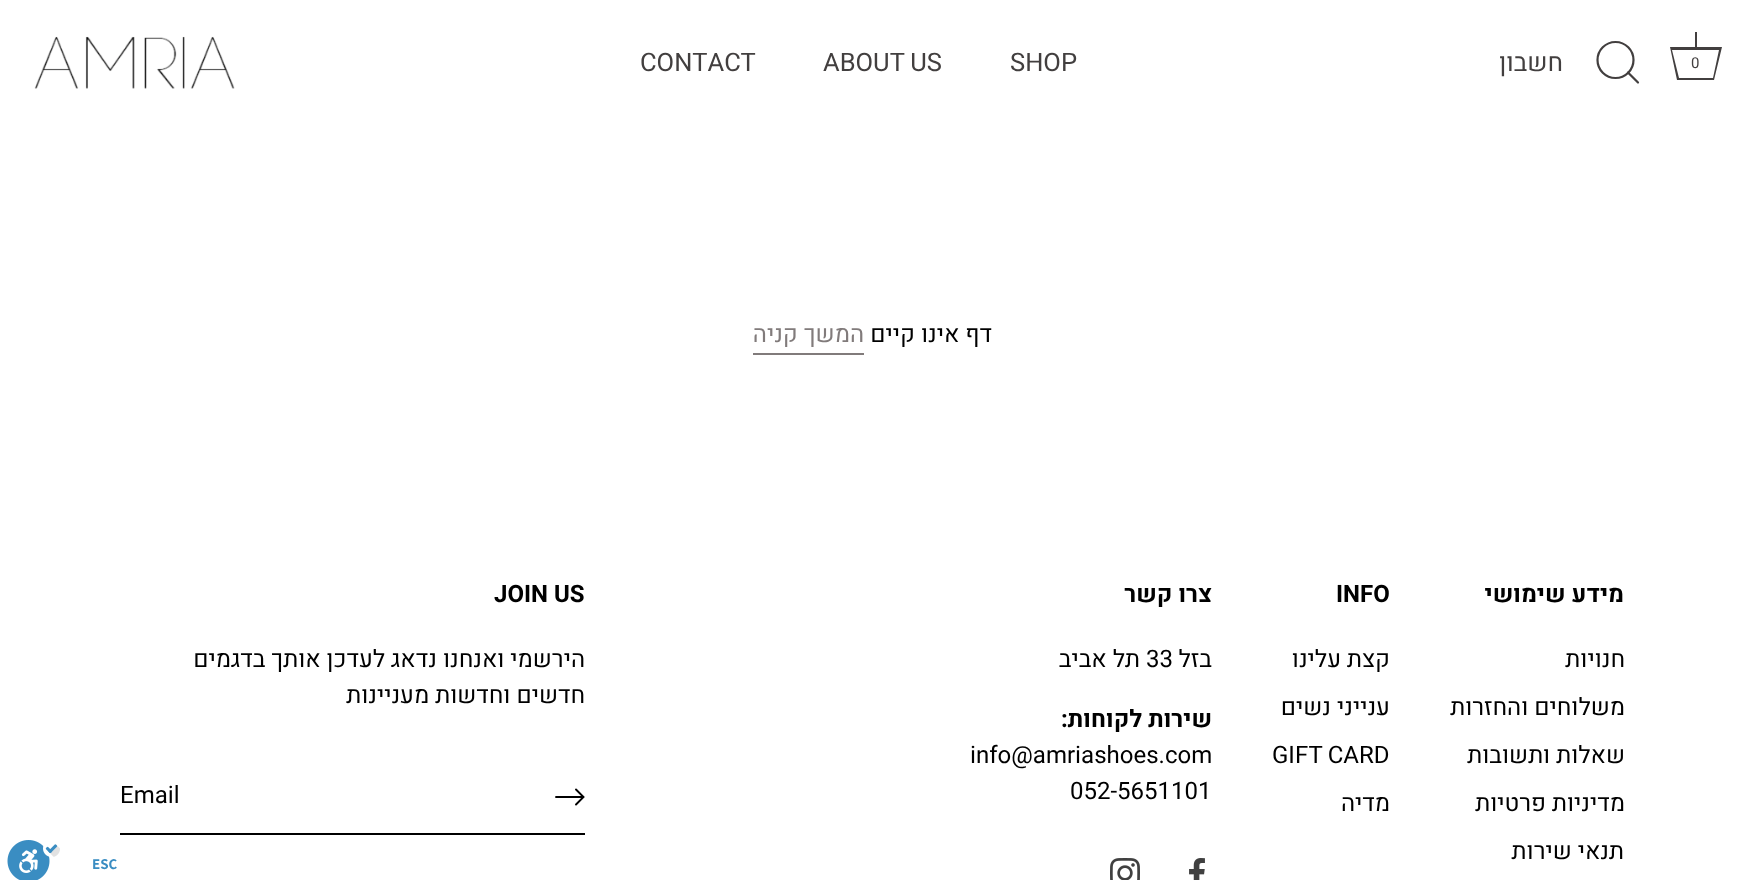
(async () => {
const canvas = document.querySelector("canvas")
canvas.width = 1744
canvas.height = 880
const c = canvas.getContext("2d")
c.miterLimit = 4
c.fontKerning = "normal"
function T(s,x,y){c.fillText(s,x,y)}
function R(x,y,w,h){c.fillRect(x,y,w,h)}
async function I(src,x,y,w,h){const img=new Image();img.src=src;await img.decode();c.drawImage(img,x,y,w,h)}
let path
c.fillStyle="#fff"
R(0,0,1744,880)
c.fillStyle="#423f3f"
R(1695,32,2,15)
path = new Path2D("M1719 50l-6 28h-34l-7-28h47m3-3h-52l7 33h37z")
c.fill(path)
c.font="15px Heebo"
T("0",1691,68)
c.beginPath()
c.arc(1615.5,60,18,0,7)
c.strokeStyle="#423f3f"
c.lineWidth=2.2
c.stroke()
path = new Path2D("M1638 82.5l-10-10")
c.lineCap="round"
c.lineJoin="round"
c.stroke(path)
c.direction="rtl"
c.font="25.5px Heebo"
T("חשבון",1563,71)
c.direction="ltr"
T("SHOP",1010,71)
c.wordSpacing="-1px"
T("ABOUT US",823,71)
c.wordSpacing="0px"
T("CONTACT",640,71)
await I("1.png",34,36,201,53)
c.direction="rtl"
c.font="24px Heebo"
c.fillStyle="#000"
T("דף אינו קיים",992,342)
c.fillStyle="#817b7b"
T("המשך קניה",864,342)
R(753,353,111,2)
c.font="bold 24px Heebo"
c.fillStyle="#000"
T("מידע שימושי",1624,602)
c.font="24px Heebo"
T("חנויות",1625,667)
T("משלוחים והחזרות",1625,715)
T("שאלות ותשובות",1625,763)
T("מדיניות פרטיות",1625,811)
T("תנאי שירות",1624,859)
c.direction="ltr"
c.font="bold 24px Heebo"
T("INFO",1336,602)
c.direction="rtl"
c.font="24px Heebo"
T("קצת עלינו",1390,667)
T("ענייני נשים",1390,715)
c.wordSpacing="-1px"
c.direction="ltr"
T("GIFT CARD",1272,763)
c.wordSpacing="0px"
c.direction="rtl"
T("מדיה",1390,811)
c.font="bold 24px Heebo"
T("צרו קשר",1212,602)
c.font="24px Heebo"
T("בזל",1212,667)
c.direction="ltr"
T("33",1146,667)
c.direction="rtl"
T("תל אביב",1140,667)
c.font="bold 24px Heebo"
T("שירות לקוחות:",1212,727)
c.direction="ltr"
c.font="24px Heebo"
T("info@amriashoes.com",970,763)
T("052-5651101",1070,799)
await I("2.png",1189,858,16,22)
await I("3.png",1110,858,30,22)
c.font="bold 24px Heebo"
T("JOIN US",494,602)
c.direction="rtl"
c.font="24px Heebo"
T("הירשמי ואנחנו נדאג לעדכן אותך בדגמים",585,667)
T("חדשים וחדשות מעניינות",585,703)
path = new Path2D("M576 804.5l7.5-7.5l-7.5-7.5")
c.strokeStyle="#000"
c.lineWidth=1.9
c.lineJoin="miter"
c.stroke(path)
path = new Path2D("M582.5 797h-26.5")
c.lineJoin="round"
c.stroke(path)
R(120,833,465,2)
c.direction="ltr"
T("Email",120,803)
c.font="bold 15px Assistant"
c.fillStyle="#3a8dc2"
T("ESC",92,869)
await I("4.png",7,840,53,40)
})()
